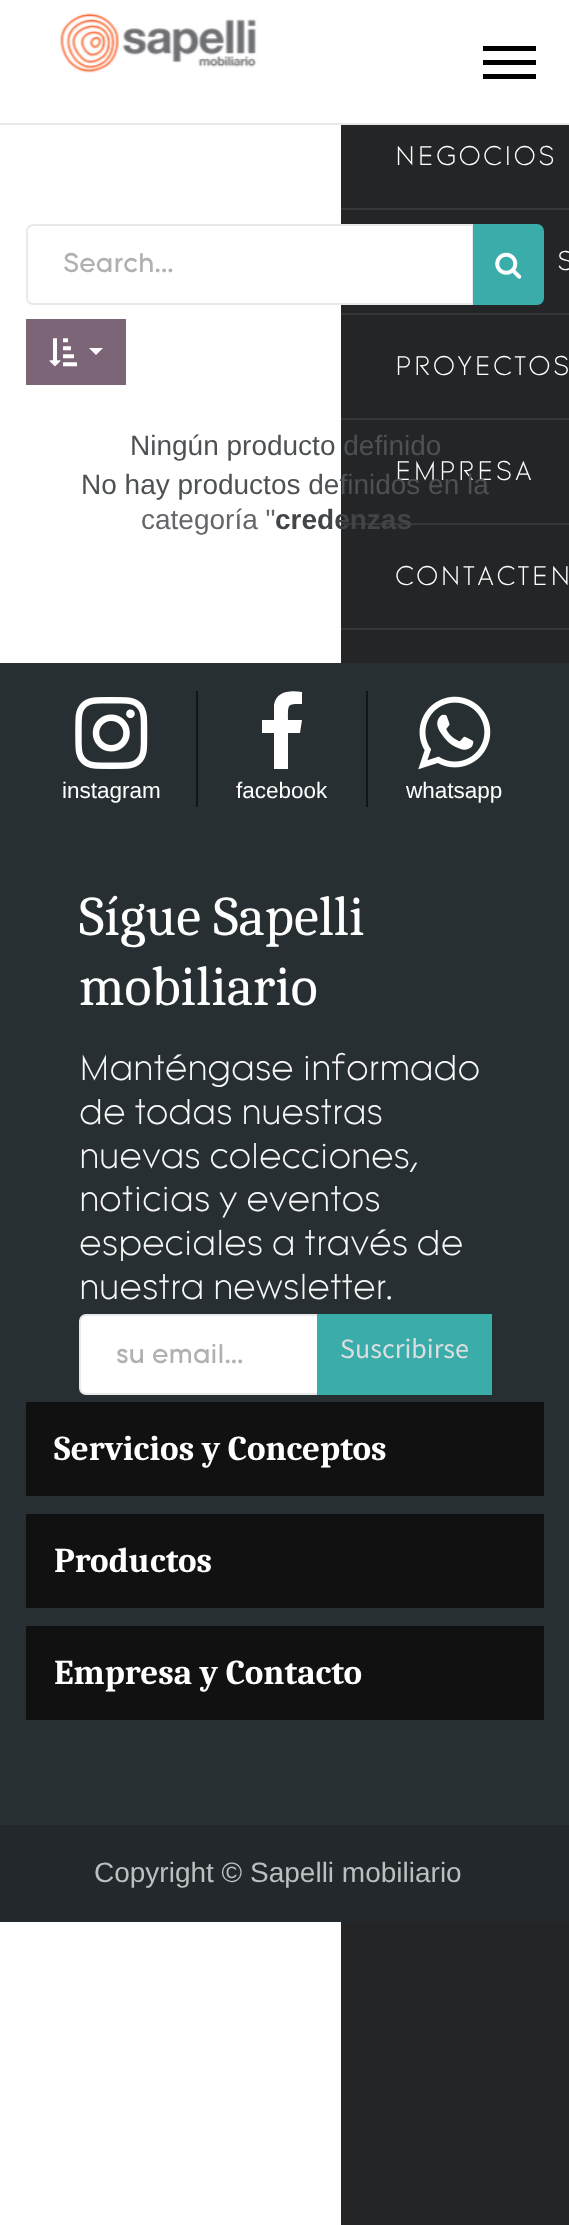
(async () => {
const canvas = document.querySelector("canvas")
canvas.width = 569
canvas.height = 2225
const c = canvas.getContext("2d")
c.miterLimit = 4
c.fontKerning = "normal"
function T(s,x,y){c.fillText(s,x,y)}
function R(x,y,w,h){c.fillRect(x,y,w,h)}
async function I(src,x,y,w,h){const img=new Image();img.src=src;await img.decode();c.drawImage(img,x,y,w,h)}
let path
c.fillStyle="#fff"
R(0,0,569,2225)
c.fillStyle="#e9e9e9"
R(0,123,569,2)
await I("1.png",59,13,198,60)
c.fillStyle="#000"
path = new Path2D("M483 46v5h53v-5zm0 19h53v-5h-53zm0 14h53v-5h-53z")
c.fill(path,"evenodd")
c.fillStyle="#242526"
R(341,125,228,2100)
c.fillStyle="#363738"
R(341,208,228,2)
c.letterSpacing="2.5px"
c.font="300 26.25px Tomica"
c.fillStyle="#fff"
T("NEGOCIOS",395,165)
c.fillStyle="#363738"
R(341,313,228,2)
c.fillStyle="#fff"
T("S",557,270)
c.fillStyle="#363738"
R(341,418,228,2)
c.fillStyle="#fff"
T("PROYECTOS",395,375)
c.fillStyle="#363738"
R(341,523,228,2)
c.fillStyle="#fff"
T("EMPRESA",395,480)
c.fillStyle="#363738"
R(341,628,228,2)
c.fillStyle="#fff"
T("CONTACTEN",395,585)
c.beginPath()
c.roundRect(27,225,446,79,[6,0,0,6])
c.fill()
c.strokeStyle="#e9e9e9"
c.lineWidth=2
c.stroke()
c.letterSpacing="0px"
c.font="26.25px Tomica"
c.fillStyle="#b1b1b1"
T("Search...",63,272)
c.fillStyle="#3aadaa"
c.beginPath()
c.roundRect(474,225,69,79,[0,6,6,0])
c.fill()
c.strokeStyle="#3aadaa"
c.stroke()
await I("2.png",495,252,27,27)
c.fillStyle="#7c6576"
R(26,319,100,66)
await I("3.png",49,338,28,29)
c.fillStyle="#fff"
path = new Path2D("M89 348h14l-7 7z")
c.fill(path)
c.font="28px Liberation Sans"
c.fillStyle="#4e5153"
T("Ningún producto definido",130,455)
T("No hay productos definidos en la",81,494)
c.fillStyle="#646669"
T("categoría \"",141,529)
c.font="bold 28px Liberation Sans"
c.fillStyle="#424548"
T("credenzas",275,529)
c.fillStyle="#282f33"
R(0,663,569,1162)
c.fillStyle="#12151f"
R(196,691,2,116)
await I("4.png",75,697,73,72)
c.font="22.5px Liberation Sans"
c.fillStyle="#fff"
T("instagram",62,798)
c.fillStyle="#12151f"
R(366,691,2,116)
c.fillStyle="#fff"
path = new Path2D("M302 692v12c-15 0-14 0-14 16h14l-2 13h-12v36h-14v-36h-12v-13h12v-15c2-14 16-15 28-13z")
c.fill(path)
T("facebook",236,798)
await I("5.png",418,696,73,74)
T("whatsapp",406,798)
c.font="56px Caladea"
T("Sígue Sapelli",79,935)
T("mobiliario",79,1005)
c.letterSpacing="-0.35px"
c.font="300 35px Tomica"
c.fillStyle="#f8f8f8"
T("Manténgase informado",79,1080)
T("de todas nuestras",79,1124)
T("nuevas colecciones,",79,1168)
T("noticias y eventos",79,1211)
T("especiales a través de",79,1255)
T("nuestra newsletter.",79,1299)
c.fillStyle="#fff"
c.beginPath()
c.roundRect(80,1315,238,79,[6,0,0,6])
c.fill()
c.strokeStyle="#e9e9e9"
c.stroke()
c.letterSpacing="0px"
c.font="26.25px Tomica"
c.fillStyle="#b1b1b1"
T("su email...",116,1363)
c.fillStyle="#3aadaa"
R(317,1314,175,81)
c.font="28px Source Sans Pro"
c.fillStyle="#dcddde"
T("Suscribirse",340,1358)
c.fillStyle="#111"
R(26,1402,518,94)
c.font="bold 35px Caladea"
c.fillStyle="#fff"
T("Servicios y Conceptos",54,1460)
c.fillStyle="#111"
R(26,1514,518,94)
c.fillStyle="#fff"
T("Productos",54,1572)
c.fillStyle="#111"
R(26,1626,518,94)
c.fillStyle="#fff"
T("Empresa y Contacto",54,1684)
c.fillStyle="#22282b"
R(0,1825,569,97)
c.font="28px Liberation Sans"
c.fillStyle="#bdbfbf"
T("Copyright © Sapelli mobiliario",94,1882)
})()
